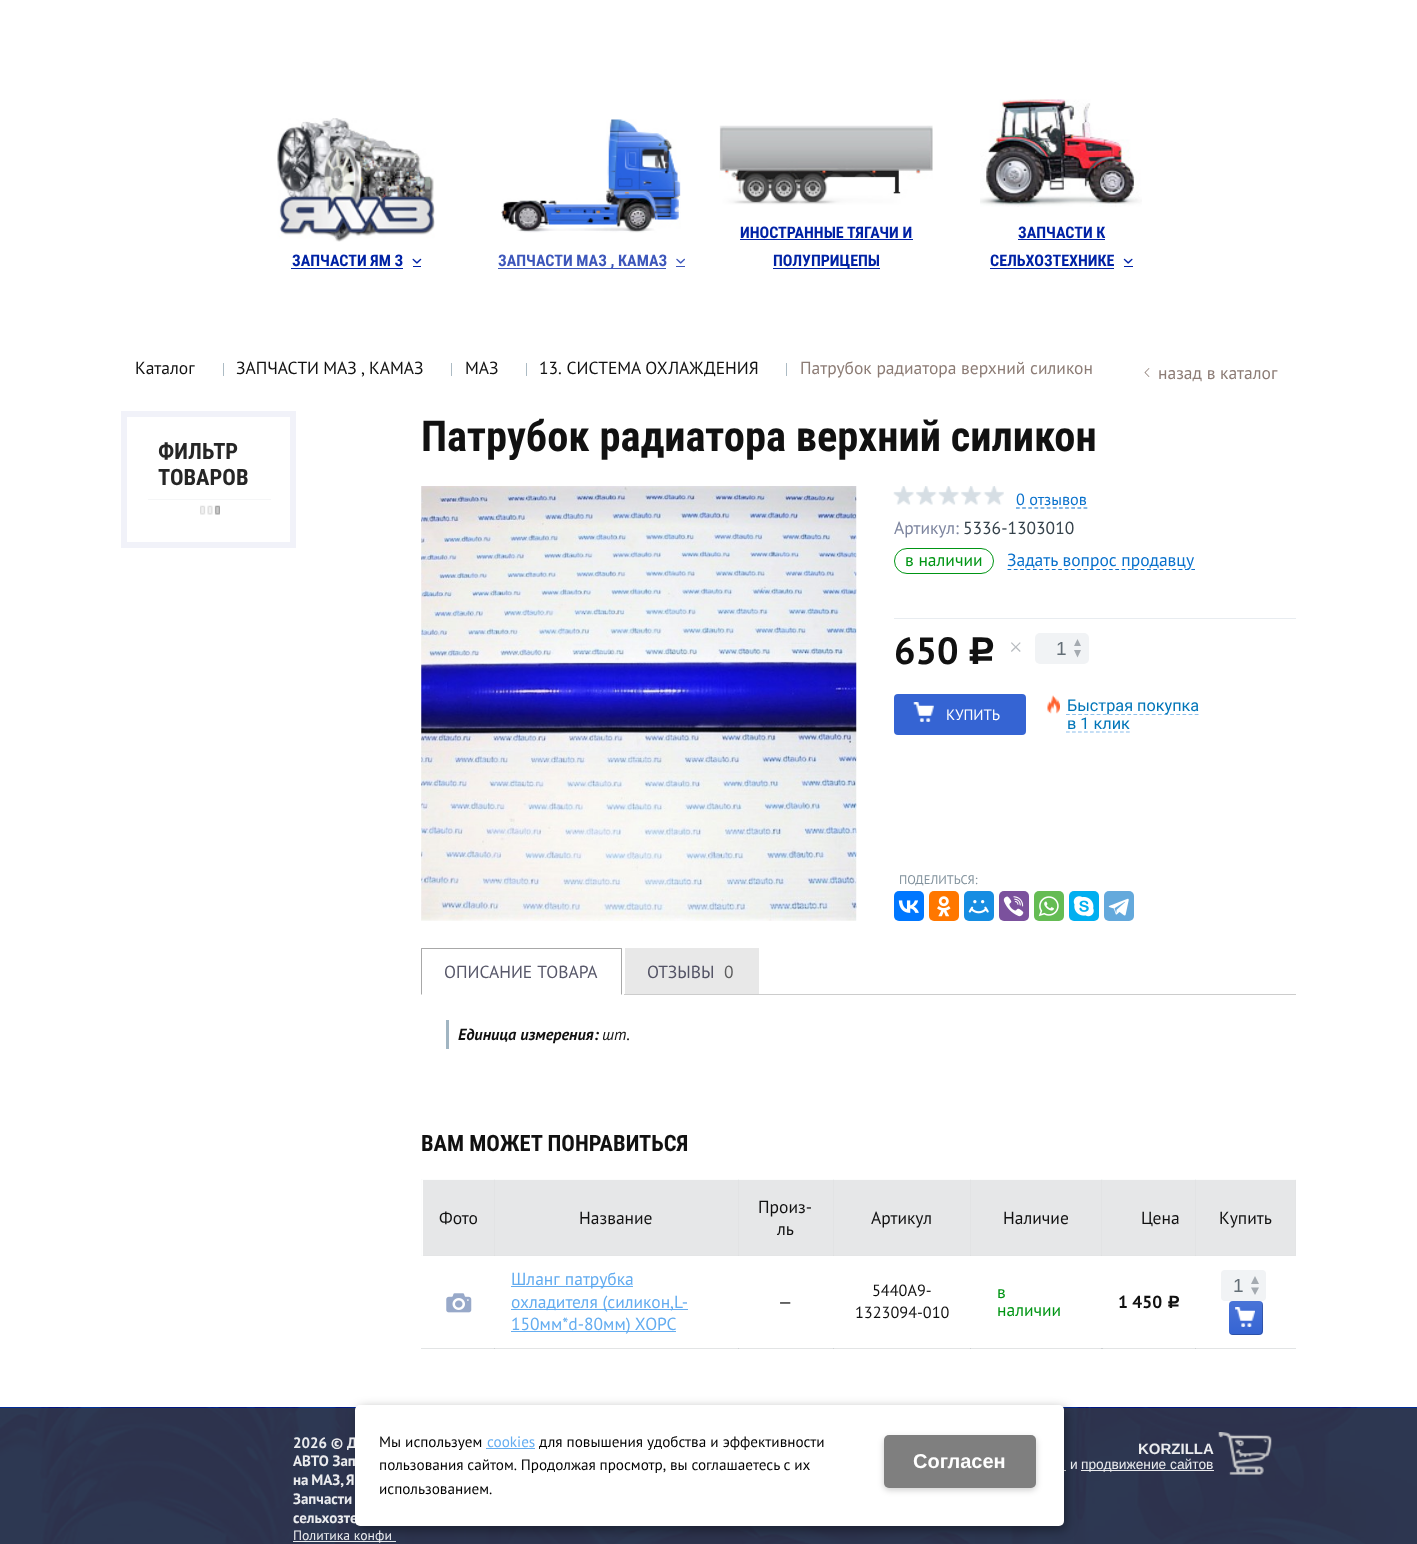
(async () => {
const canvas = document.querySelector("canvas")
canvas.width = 1417
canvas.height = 1544
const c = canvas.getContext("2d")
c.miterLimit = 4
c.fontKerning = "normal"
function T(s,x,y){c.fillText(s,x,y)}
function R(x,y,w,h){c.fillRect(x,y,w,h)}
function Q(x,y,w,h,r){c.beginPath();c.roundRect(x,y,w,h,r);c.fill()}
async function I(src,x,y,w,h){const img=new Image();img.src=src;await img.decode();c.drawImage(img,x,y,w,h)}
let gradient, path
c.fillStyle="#fff"
R(0,0,1417,1544)
c.fillStyle="#fcfdfd"
R(421,1179,1,77)
R(421,1255,2,1)
c.fillStyle="#f9fbfb"
R(421,1255,1,1)
c.fillStyle="#fcfdfd"
R(421,1179,875,1)
c.fillStyle="#f9fbfb"
R(421,1179,1,1)
c.fillStyle="#f3f7f7"
R(494,1179,1,1)
R(738,1179,1,1)
R(833,1179,1,1)
R(970,1179,1,1)
c.fillStyle="#f9fbfb"
R(1101,1179,2,1)
c.fillStyle="#f3f7f7"
R(1101,1179,1,1)
c.fillStyle="#e2e4e5"
R(421,1348,875,1)
c.fillStyle="#cbced1"
R(494,1348,1,1)
R(738,1348,1,1)
R(833,1348,1,1)
R(970,1348,1,1)
R(1101,1348,2,1)
await I("1.png",277,118,158,124)
c.font="bold 16px Roboto Condensed"
c.fillStyle="#0022a5"
T("ЗАПЧАСТИ ЯМ З",292,266)
R(291,268,112,1)
R(413,266,8,1)
await I("2.png",412,258,10,6)
await I("3.png",501,119,180,114)
c.fillStyle="#3d57bb"
R(498,268,168,1)
T("ЗАПЧАСТИ МАЗ , КАМАЗ",498,266)
R(676,266,9,1)
await I("4.png",676,258,9,6)
await I("5.png",719,125,214,80)
c.fillStyle="#0022a5"
T("ИНОСТРАННЫЕ ТЯГАЧИ И",740,238)
R(740,239,173,1)
R(773,268,107,1)
T("ПОЛУПРИЦЕПЫ",773,266)
await I("6.png",980,99,162,108)
T("ЗАПЧАСТИ К",1018,238)
R(1018,239,87,1)
T("СЕЛЬХОЗТЕХНИКЕ",990,266)
R(990,268,124,1)
R(1124,266,9,1)
await I("7.png",1123,258,10,6)
c.font="17.5px PT Sans"
c.fillStyle="#111"
T("Каталог",135,374)
c.fillStyle="#acbbc4"
R(223,363,1,13)
c.wordSpacing="-0.5px"
c.fillStyle="#111"
T("ЗАПЧАСТИ МАЗ , КАМАЗ",236,374)
c.fillStyle="#acbbc4"
R(451,363,1,13)
c.wordSpacing="0px"
c.fillStyle="#111"
T("МАЗ",465,374)
c.fillStyle="#acbbc4"
R(526,363,1,13)
c.fillStyle="#111"
T("13. СИСТЕМА ОХЛАЖДЕНИЯ",539,374)
c.fillStyle="#acbbc4"
R(786,363,1,13)
c.fillStyle="#8c7c75"
T("Патрубок радиатора верхний силикон",800,374)
await I("8.png",1144,368,6,9)
T("назад в каталог",1158,379)
c.strokeStyle="#f1f2f9"
c.lineWidth=6
c.strokeRect(124,414,169,131)
c.fillStyle="#f5f6f7"
R(148,499,123,1)
c.font="bold 22.5px Roboto Condensed"
c.fillStyle="#262626"
T("ФИЛЬТР",158,459)
T("ТОВАРОВ",158,485)
await I("9.png",200,505,20,10)
c.font="bold 42.5px Roboto Condensed"
c.fillStyle="#111"
T("Патрубок радиатора верхний силикон",421,451)
c.fillStyle="#fafafb"
R(421,486,435,435)
await I("10.png",421,486,436,435)
await I("11.png",893,486,111,19)
path = new Path2D("M1016 508h71.5")
c.strokeStyle="#0971cc"
c.lineWidth=1.2
c.setLineDash([3.75,2.39])
c.stroke(path)
c.font="16.25px PT Sans"
c.fillStyle="#0971cc"
T("0 отзывов",1016,505)
c.font="17.5px PT Sans"
c.fillStyle="#7d859f"
T("Артикул:",894,534)
c.fillStyle="#35424b"
T("5336-1303010",963,534)
c.beginPath()
c.roundRect(894.5,548.5,99,25,12.5)
c.strokeStyle="#009514"
c.lineWidth=1
c.setLineDash([])
c.stroke()
c.fillStyle="#009514"
T("в наличии",905,566)
path = new Path2D("M1007.5 569.5h187.5")
c.strokeStyle="#0971cc"
c.lineWidth=1.2
c.setLineDash([3.75,2.59])
c.stroke(path)
c.fillStyle="#0971cc"
T("Задать вопрос продавцу",1007,566)
c.fillStyle="#e8ecf0"
R(894,618,402,1)
c.font="bold 38px PT Sans"
c.fillStyle="#111"
T("650",894,664)
c.font="38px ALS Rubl"
T("c",967,664)
c.font="24px Liberation Serif"
c.fillStyle="#b8bcc0"
T("×",1009,655)
c.fillStyle="#f1f3f5"
Q(1035,633,54,31,5)
c.font="19px Liberation Sans"
c.fillStyle="#636e76"
T("1",1056,655)
c.fillStyle="#a4aab0"
path = new Path2D("M1081 646h-7l3.5-7zm-7 4h7l-3.5 7.5z")
c.fill(path)
c.fillStyle="#3564d3"
Q(894,694,132,41,4)
await I("12.png",913,702,21,20)
c.font="15px PT Sans"
c.fillStyle="#fff"
T("КУПИТЬ",946,720)
await I("13.png",1047,695,13,19)
path = new Path2D("M1066 714.5h133")
c.strokeStyle="#8abeeb"
c.setLineDash([3.75,2.38])
c.stroke(path)
c.font="16.25px Roboto"
c.fillStyle="#0075b8"
T("Быстрая покупка",1067,711)
path = new Path2D("M1066 732h64")
c.setLineDash([3.75,2.25])
c.stroke(path)
T("в 1 клик",1067,729)
c.font="12.5px PT Sans"
c.fillStyle="#81919c"
T("ПОДЕЛИТЬСЯ:",899,884)
c.fillStyle="#07f"
Q(894,891,30,30,5)
await I("14.png",898,900,21,13)
c.fillStyle="#f70"
Q(929,891,30,30,5)
await I("15.png",937,896,14,21)
c.fillStyle="#168de2"
Q(964,891,30,30,5)
await I("16.png",968,900,21,14)
c.fillStyle="#7b519d"
Q(999,891,30,30,5)
await I("17.png",1003,896,21,21)
c.fillStyle="#65bc54"
Q(1034,891,30,30,5)
await I("18.png",1038,896,21,21)
c.fillStyle="#00aff0"
Q(1069,891,30,30,5)
await I("19.png",1073,896,21,21)
c.fillStyle="#64a9dc"
Q(1104,891,30,30,5)
await I("20.png",1108,898,21,18)
c.fillStyle="#a8a8a8"
path = new Path2D("M421 948h201l-1 1h-199z")
c.fill(path)
c.fillStyle="#00000057"
path = new Path2D("M622 948v47l-1-1v-45z")
c.fill(path)
path = new Path2D("M421 995v-47l1 1v45z")
c.fill(path)
c.wordSpacing="1px"
c.font="17.5px PT Sans"
c.fillStyle="#58586a"
T("ОПИСАНИЕ ТОВАРА",444,978)
c.fillStyle="#ccc"
R(624,994,672,1)
c.fillStyle="#e8e8e8"
R(625,948,134,46)
c.wordSpacing="0px"
c.fillStyle="#525264"
T("ОТЗЫВЫ",647,978)
c.fillStyle="#5e5e5e"
T("0",724,978)
c.fillStyle="#a1b5c2"
R(446,1020,3,29)
c.font="italic bold 16.25px PT Sans"
c.fillStyle="#111"
T("Единица измерения:",458,1040)
c.font="italic 16.25px PT Sans"
T("шт.",602,1040)
c.font="bold 22.5px Roboto Condensed"
T("ВАМ МОЖЕТ ПОНРАВИТЬСЯ",421,1151)
c.fillStyle="#e6e7e8"
R(423,1180,71,75)
c.fillStyle="#e4e5e6"
R(423,1255,315,1)
c.fillStyle="#e2e3e4"
R(494,1180,1,76)
c.fillStyle="#dedfe0"
R(494,1255,1,1)
c.font="17.5px PT Sans"
c.fillStyle="#111"
T("Фото",439,1224)
c.fillStyle="#e6e7e8"
R(495,1180,243,75)
c.fillStyle="#111"
T("Название",579,1224)
c.fillStyle="#e6e7e8"
R(739,1180,94,75)
c.fillStyle="#e2e3e4"
R(738,1180,1,76)
c.fillStyle="#e4e5e6"
R(738,1255,95,1)
c.fillStyle="#dedfe0"
R(738,1255,1,1)
c.fillStyle="#111"
T("Произ-",758,1213)
T("ль",777,1235)
c.fillStyle="#e6e7e8"
R(834,1180,136,75)
c.fillStyle="#e2e3e4"
R(833,1180,1,76)
c.fillStyle="#e4e5e6"
R(833,1255,137,1)
c.fillStyle="#dedfe0"
R(833,1255,1,1)
c.fillStyle="#111"
T("Артикул",871,1224)
c.fillStyle="#e6e7e8"
R(971,1180,130,75)
c.fillStyle="#e2e3e4"
R(970,1180,1,76)
c.fillStyle="#e4e5e6"
R(970,1255,131,1)
c.fillStyle="#dedfe0"
R(970,1255,1,1)
c.fillStyle="#111"
T("Наличие",1003,1224)
c.fillStyle="#e6e7e8"
R(1102,1180,93,75)
c.fillStyle="#e2e3e4"
R(1101,1180,1,76)
c.fillStyle="#e4e5e6"
R(1101,1255,95,1)
c.fillStyle="#dedfe0"
R(1101,1255,1,1)
c.fillStyle="#e2e3e4"
R(1195,1180,1,76)
c.fillStyle="#111"
T("Цена",1141,1224)
c.fillStyle="#e6e7e8"
R(1196,1180,99,75)
c.fillStyle="#e4e5e6"
R(1295,1180,1,76)
c.fillStyle="#f3f7f7"
R(1195,1179,1,1)
c.fillStyle="#f9fbfb"
R(1295,1179,1,1)
c.fillStyle="#e4e5e6"
R(1195,1255,101,1)
c.fillStyle="#dedfe0"
R(1195,1255,1,1)
c.fillStyle="#111"
T("Купить",1219,1224)
await I("21.png",446,1293,26,20)
c.fillStyle="#63acf0"
R(511,1286,122,1)
c.wordSpacing="1px"
T("Шланг патрубка",511,1285)
R(511,1309,177,1)
c.wordSpacing="0px"
T("охладителя (силикон,L-",511,1308)
R(511,1331,165,1)
T("150мм*d-80мм) ХОРС",511,1330)
c.fillStyle="#111"
T("—",778,1308)
c.font="16.25px PT Sans"
T("5440А9-",872,1296)
T("1323094-010",855,1318)
c.font="17.5px PT Sans"
c.fillStyle="#009514"
T("в",997,1298)
T("наличии",997,1316)
c.font="bold 17.5px PT Sans"
c.fillStyle="#111"
T("1 450",1118,1308)
c.font="17.5px ALS Rubl"
T("c",1167,1308)
c.fillStyle="#cbced1"
R(1195,1348,1,1)
c.fillStyle="#f1f3f5"
Q(1221,1270,45,31,4)
c.font="19px Liberation Sans"
c.fillStyle="#636e76"
T("1",1233,1292)
c.fillStyle="#a4aab0"
path = new Path2D("M1259 1284h-8l4-8zm-8 3.5h8l-4 7.5z")
c.fill(path)
c.fillStyle="#3564d3"
Q(1229,1301,34,34,4)
await I("22.png",1235,1307,20,20)
gradient = c.createLinearGradient(1246,1301,1246,1335)
gradient.addColorStop(0,"#ffffff1a")
gradient.addColorStop(1,"#ffffff00")
c.fillStyle = gradient
Q(1229,1301,34,34,4)
c.fillStyle="#00000033"
path = new Path2D("M1229 1330c0 5.5 3.5 5 8.5 5h8.5c19.5 0 17 2.5 17-17v-8.5c0-2.5 .5-5.5-1.5-7.5l.5 2v26c0 2-1 4-3 4h-27c-2 0-3-2-3-4z")
c.fill(path)
await I("23.png",0,1407,1417,137)
c.fillStyle="#ffffffe6"
R(293,1541,103,1)
R(1081,1470,133,1)
R(1064,1470,2,1)
c.fillStyle="#00000066"
c.filter="blur(6px)"
c.beginPath()
c.roundRect(358,1409,708,121,5)
c.fill()
c.filter="none"
c.font="bold 15px PT Sans"
c.fillStyle="#eaebee"
T("2026 © Д",293,1448)
T("АВТО Зап",293,1466)
T("сельхозте",293,1523)
c.fillStyle="#fff"
Q(355,1405,709,121,5)
c.font="15.2px PT Sans"
c.fillStyle="#000"
T("Мы используем",379,1447)
c.fillStyle="#63acf0"
T("cookies",487,1447)
R(486,1448,49,1)
c.fillStyle="#000"
T("для повышения удобства и эффективности",539,1447)
c.wordSpacing="-0.25px"
T("пользования сайтом. Продолжая просмотр, вы соглашаетесь с их",379,1470)
c.wordSpacing="0px"
T("использованием.",379,1494)
c.fillStyle="#00000033"
c.filter="blur(3px)"
c.beginPath()
c.roundRect(884,1438,152,52,5)
c.fill()
c.filter="none"
c.fillStyle="#7f7f7f"
Q(884,1435,152,53,5)
c.font="bold 20px Liberation Sans"
c.fillStyle="#fff"
T("Cогласен",913,1468)
c.wordSpacing="-1px"
c.font="bold 15px PT Sans"
c.fillStyle="#eaebee"
T("на МАЗ, Я",293,1485)
c.wordSpacing="0px"
T("Запчасти",293,1504)
c.font="13.75px PT Sans"
T("Политика конфи",293,1540)
c.font="bold 15px Liberation Sans"
T("KORZILLA",1138,1454)
c.font="13.75px Liberation Sans"
T("и",1070,1469)
await I("24.png",1218,1432,54,43)
T("продвижение сайтов",1081,1469)
})()
